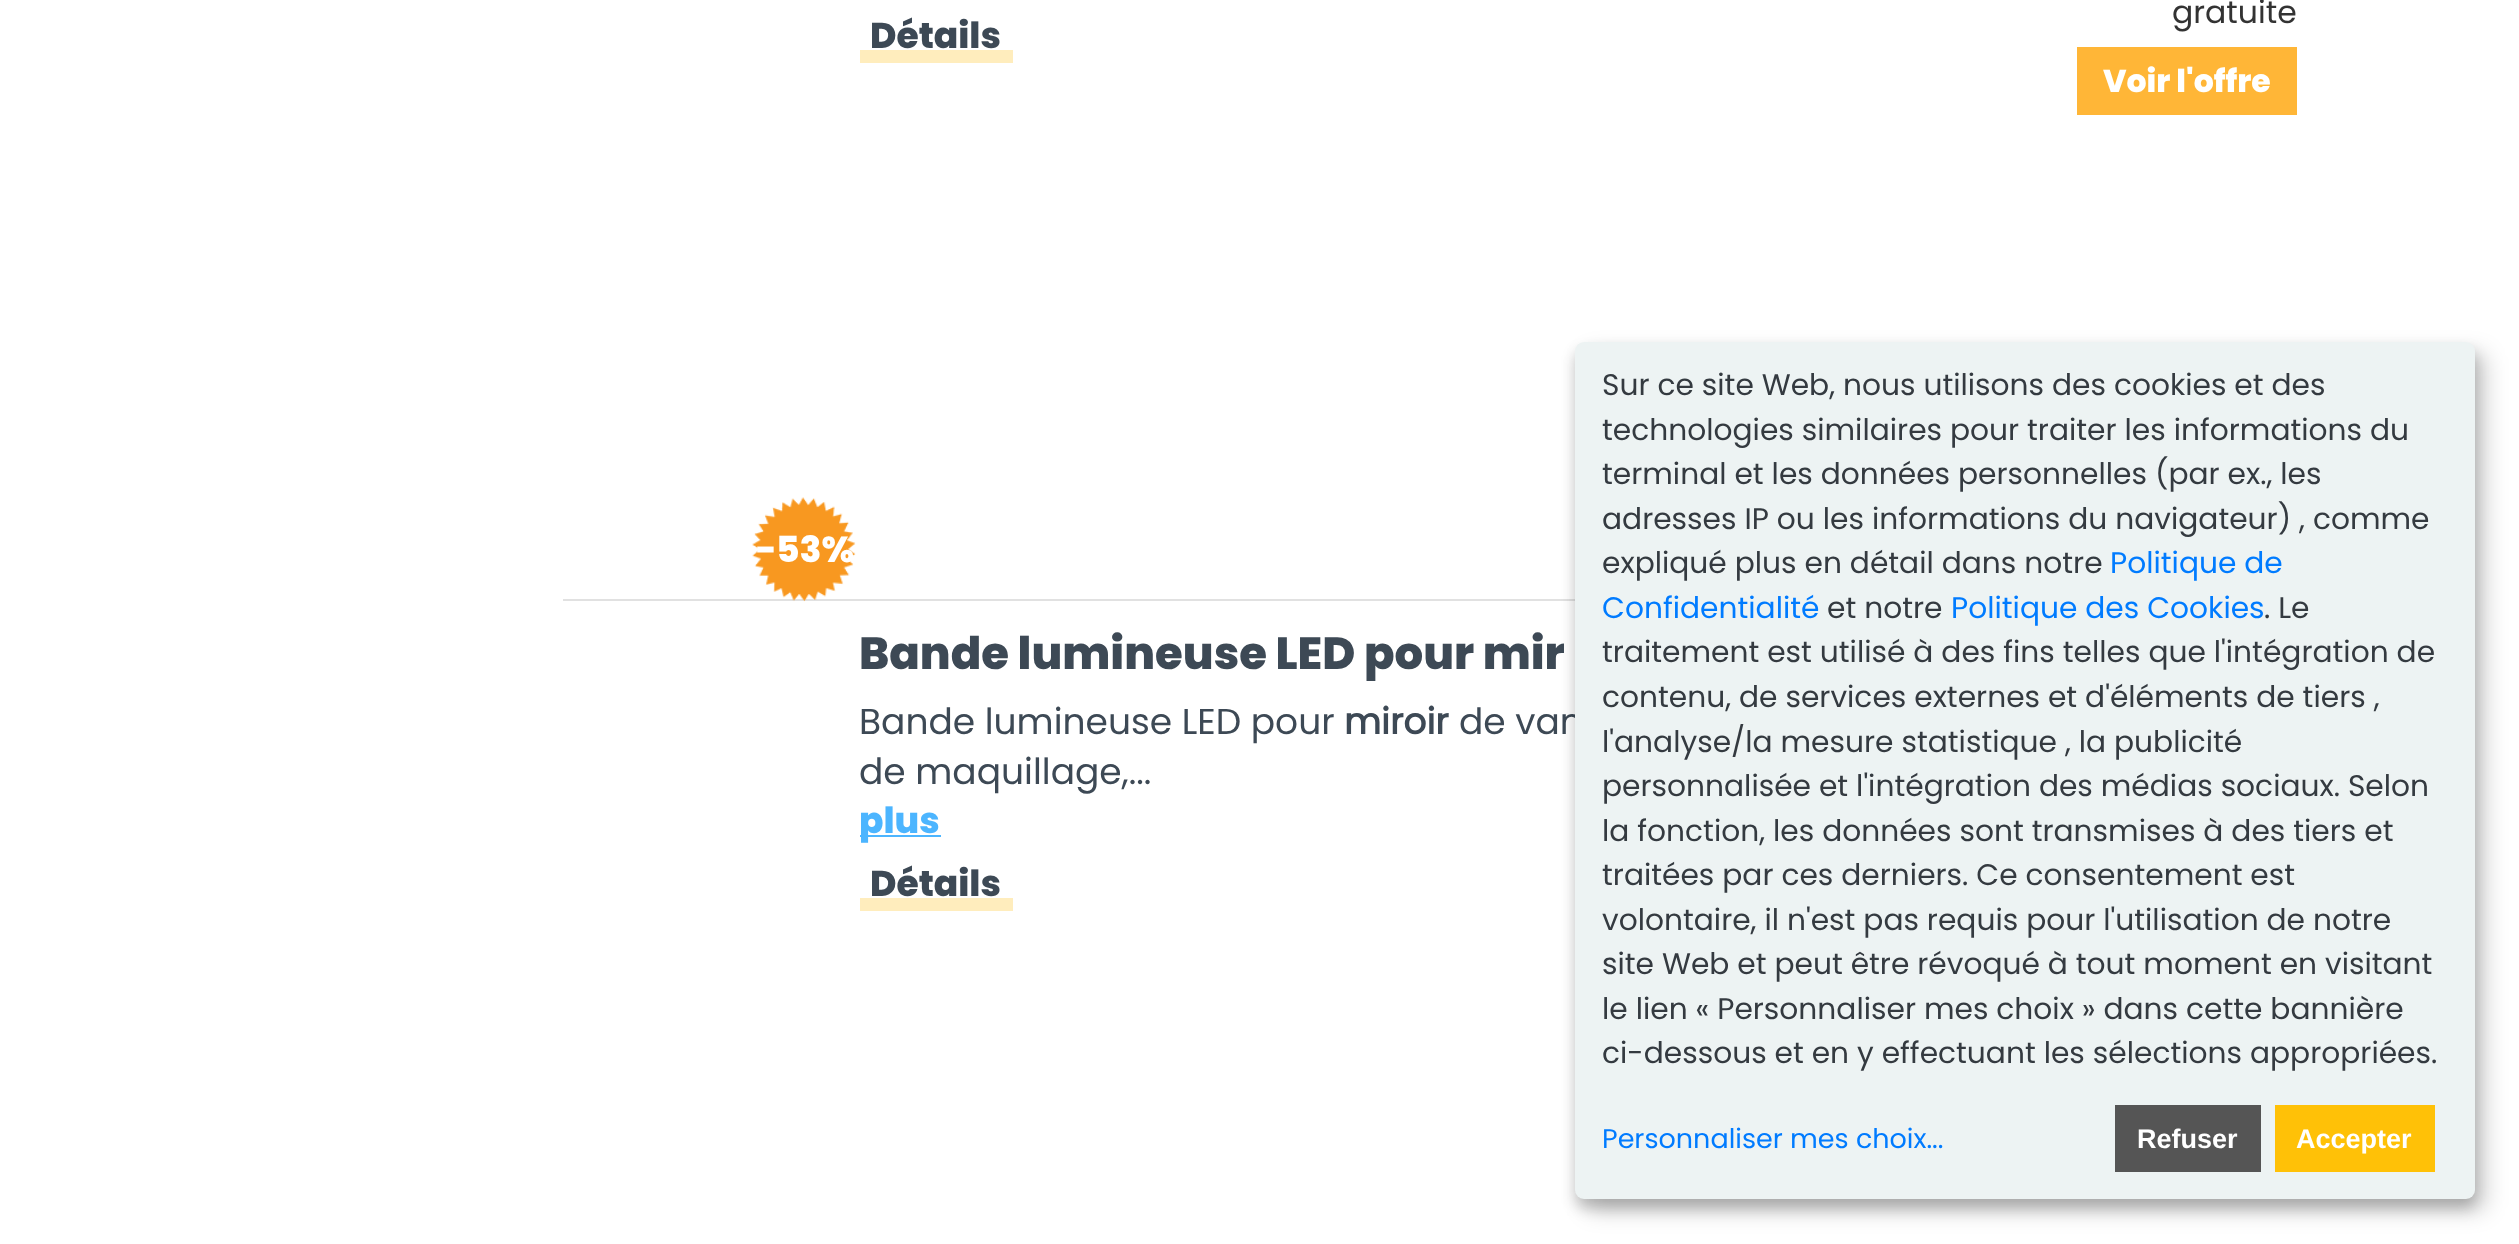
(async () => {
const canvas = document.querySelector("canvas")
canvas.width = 2519
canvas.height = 1244
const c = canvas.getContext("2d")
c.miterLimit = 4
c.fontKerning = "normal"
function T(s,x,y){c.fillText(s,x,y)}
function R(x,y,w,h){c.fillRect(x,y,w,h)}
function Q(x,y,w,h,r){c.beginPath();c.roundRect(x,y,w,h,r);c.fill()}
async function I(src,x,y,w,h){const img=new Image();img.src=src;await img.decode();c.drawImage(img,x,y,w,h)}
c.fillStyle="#fff"
R(0,0,2519,1244)
c.fillStyle="#e1e1e1"
R(563,599,1012,2)
c.fillStyle="#ffedbd"
R(860,50,153,13)
c.font="800 36px Poppins"
c.fillStyle="#3d4955"
T("Détails",870,48)
c.font="31.5px Poppins"
c.fillStyle="#333"
T("gratuite",2172,23)
c.fillStyle="#ffb637"
R(2077,47,220,68)
c.font="800 31.5px Poppins"
c.fillStyle="#fff"
T("Voir l'offre",2103,92)
await I("1.png",752,497,104,105)
c.font="800 36px Poppins"
T("-",756,562)
T("53%",776,562)
c.font="800 45px Poppins"
c.fillStyle="#3d4955"
T("Bande lumineuse LED pour mir",859,669)
c.font="36px Poppins"
T("Bande lumineuse LED pour",859,734)
c.font="bold 36px Poppins"
T("miroir",1344,734)
c.font="36px Poppins"
T("de van",1459,734)
T("de maquillage,...",859,784)
c.fillStyle="#4cb5ff"
R(860,835,81,2)
c.font="800 36px Poppins"
T("plus",859,833)
c.fillStyle="#ffedbd"
R(860,898,153,13)
c.fillStyle="#3d4955"
T("Détails",870,896)
c.fillStyle="#00000030"
c.filter="blur(11px)"
c.beginPath()
c.roundRect(1586,353,900,858,9)
c.fill()
c.filter="none"
c.fillStyle="#00000033"
c.filter="blur(7px)"
c.beginPath()
c.roundRect(1575,351,900,857,9)
c.fill()
c.filter="none"
c.fillStyle="#edf3f3"
Q(1575,342,900,857,9)
c.font="29.7px Poppins"
c.fillStyle="#343a40"
T("Sur ce site Web, nous utilisons des cookies et des",1602,395)
T("technologies similaires pour traiter les informations du",1602,440)
T("terminal et les données personnelles (par ex., les",1602,484)
T("adresses IP ou les informations du navigateur) , comme",1602,529)
T("expliqué plus en détail dans notre",1602,573)
c.fillStyle="#007bff"
T("Politique de",2110,573)
T("Confidentialité",1602,618)
c.fillStyle="#343a40"
T("et notre",1827,618)
c.fillStyle="#007bff"
T("Politique des Cookies",1951,618)
c.fillStyle="#343a40"
T(". Le",2264,618)
T("traitement est utilisé à des fins telles que l'intégration de",1602,662)
T("contenu, de services externes et d'éléments de tiers ,",1602,707)
T("l'analyse/la mesure statistique , la publicité",1602,752)
T("personnalisée et l'intégration des médias sociaux. Selon",1602,796)
T("la fonction, les données sont transmises à des tiers et",1602,841)
T("traitées par ces derniers. Ce consentement est",1602,885)
T("volontaire, il n'est pas requis pour l'utilisation de notre",1602,930)
T("site Web et peut être révoqué à tout moment en visitant",1602,974)
T("le lien « Personnaliser mes choix » dans cette bannière",1602,1019)
T("ci-dessous et en y effectuant les sélections appropriées.",1602,1063)
c.font="27px Poppins"
c.fillStyle="#007bff"
T("Personnaliser mes choix...",1602,1148)
c.fillStyle="#555"
R(2115,1105,146,67)
c.font="bold 27px Liberation Sans"
c.fillStyle="#fff"
T("Refuser",2137,1148)
c.fillStyle="#ffc107"
R(2275,1105,160,67)
c.fillStyle="#fff"
T("Accepter",2296,1148)
})()
